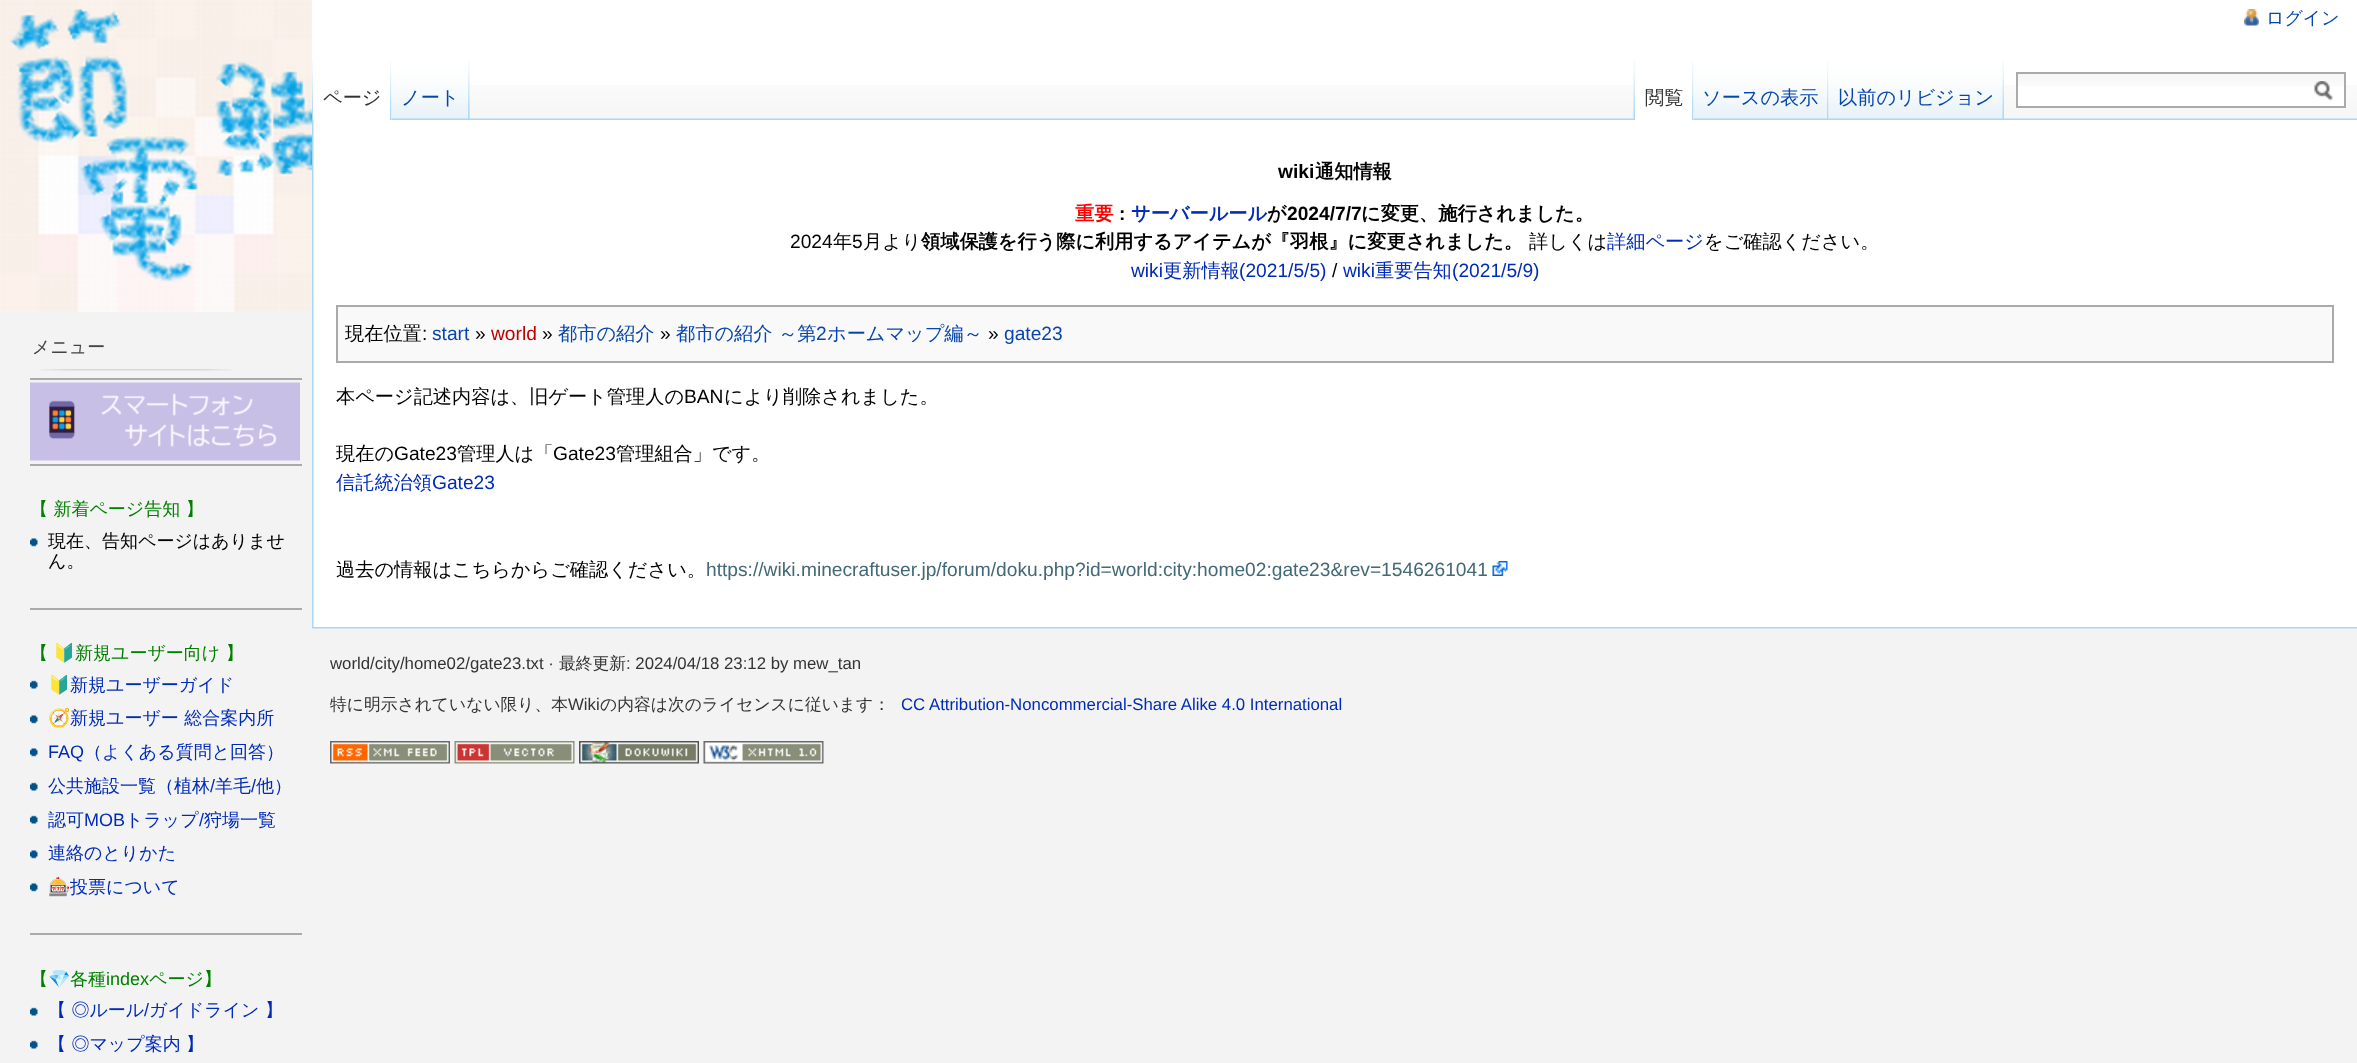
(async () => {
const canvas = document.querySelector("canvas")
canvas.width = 2357
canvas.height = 1063
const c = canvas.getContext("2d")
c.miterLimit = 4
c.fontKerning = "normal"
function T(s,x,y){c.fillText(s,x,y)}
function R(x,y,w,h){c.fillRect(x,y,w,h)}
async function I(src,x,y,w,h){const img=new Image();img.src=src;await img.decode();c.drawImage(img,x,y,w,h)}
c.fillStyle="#f3f3f3"
R(0,0,2357,1063)
c.fillStyle="#fff"
R(312,0,2045,85)
await I("1.png",469,85,1888,34)
await I("2.png",2244,9,15,17)
c.font="500 18px WenQuanYi Zen Hei"
c.fillStyle="#0645ad"
T("ログイン",2266,24)
await I("14.png",312,118,2045,2)
await I("3.png",312,60,1,59)
await I("4.png",469,60,1,59)
c.fillStyle="#fff"
R(313,85,79,35)
await I("5.png",390,60,2,60)
c.font="500 19.2px WenQuanYi Zen Hei"
c.fillStyle="#333"
T("ページ",323,104)
await I("6.png",391,60,79,60)
await I("7.png",468,60,2,60)
c.fillStyle="#0645ad"
T("ノート",401,104)
await I("8.png",1633,60,2,59)
c.fillStyle="#fff"
R(1635,85,59,35)
await I("5.png",1692,60,2,60)
c.fillStyle="#333"
T("閲覧",1645,104)
await I("9.png",1693,60,136,60)
await I("7.png",1827,60,2,60)
c.fillStyle="#0645ad"
T("ソースの表示",1702,104)
await I("10.png",1828,60,176,60)
await I("11.png",2002,60,2,59)
T("以前のリビジョン",1838,104)
c.fillStyle="#fff"
R(2018,86,326,20)
await I("12.png",2018,74,326,12)
c.strokeStyle="#aaa"
c.lineWidth=2
c.strokeRect(2017,73,328,34)
await I("13.png",2314,81,19,20)
await I("15.png",0,0,312,312)
c.font="500 18px WenQuanYi Zen Hei"
c.fillStyle="#444"
T("メニュー",32,353)
await I("16.png",40,369,192,2)
c.fillStyle="#aaa"
R(30,378,272,2)
await I("17.png",30,382,270,79)
R(30,464,272,2)
c.fillStyle="#008000"
T("【 新着ページ告知 】",30,515)
await I("18.png",30,538,8,9)
c.fillStyle="#000"
T("現在、告知ページはありませ",48,547)
T("ん。",48,567)
c.fillStyle="#aaa"
R(30,608,272,2)
c.fillStyle="#008000"
T("【",30,659)
c.font="18px Noto Color Emoji"
T("🔰",53,659)
c.font="500 18px WenQuanYi Zen Hei"
T("新規ユーザー向け 】",75,659)
await I("19.png",30,680,8,9)
c.font="18px Noto Color Emoji"
c.fillStyle="#002bb8"
T("🔰",48,691)
c.font="500 18px WenQuanYi Zen Hei"
T("新規ユーザーガイド",70,691)
await I("18.png",30,715,8,9)
c.font="18px Noto Color Emoji"
T("🧭",48,724)
c.font="500 18px WenQuanYi Zen Hei"
T("新規ユーザー 総合案内所",70,724)
await I("18.png",30,748,8,9)
c.font="18px Liberation Sans"
T("FAQ",48,758)
c.font="500 18px WenQuanYi Zen Hei"
T("（よくある質問と回答）",84,758)
await I("19.png",30,782,8,9)
T("公共施設一覧（植林",48,792)
c.font="18px Liberation Sans"
T("/",210,792)
c.font="500 18px WenQuanYi Zen Hei"
T("羊毛",215,792)
c.font="18px Liberation Sans"
T("/",251,792)
c.font="500 18px WenQuanYi Zen Hei"
T("他）",256,792)
await I("19.png",30,815,8,9)
T("認可",48,826)
c.font="18px Liberation Sans"
T("MOB",84,826)
c.font="500 18px WenQuanYi Zen Hei"
T("トラップ",125,826)
c.font="18px Liberation Sans"
T("/",199,826)
c.font="500 18px WenQuanYi Zen Hei"
T("狩場一覧",204,826)
await I("18.png",30,850,8,9)
T("連絡のとりかた",48,859)
await I("18.png",30,883,8,9)
c.font="18px Noto Color Emoji"
T("🎰",48,893)
c.font="500 18px WenQuanYi Zen Hei"
T("投票について",70,893)
c.fillStyle="#aaa"
R(30,933,272,2)
c.fillStyle="#008000"
T("【",30,985)
c.font="18px Noto Color Emoji"
T("💎",48,985)
c.font="500 18px WenQuanYi Zen Hei"
T("各種",70,985)
c.font="18px Liberation Sans"
T("index",106,985)
c.font="500 18px WenQuanYi Zen Hei"
T("ページ】",149,985)
await I("19.png",30,1007,8,9)
c.fillStyle="#002bb8"
T("【 ◎ルール",48,1016)
c.font="18px Liberation Sans"
T("/",144,1016)
c.font="500 18px WenQuanYi Zen Hei"
T("ガイドライン 】",149,1016)
await I("19.png",30,1040,8,9)
T("【 ◎マップ案内 】",48,1050)
c.fillStyle="#fff"
R(313,120,2044,507)
await I("20.png",312,120,2,507)
c.font="bold 19.2px Liberation Sans"
c.fillStyle="#000"
T("wiki",1278,178)
c.font="bold 19.2px WenQuanYi Zen Hei"
T("通知情報",1315,178)
c.fillStyle="#f00"
T("重要",1075,220)
c.font="bold 19.2px Liberation Sans"
c.fillStyle="#000"
T(":",1119,220)
c.font="bold 19.2px WenQuanYi Zen Hei"
c.fillStyle="#002bb8"
T("サーバールール",1131,220)
c.fillStyle="#000"
T("が",1267,220)
c.font="bold 19.2px Liberation Sans"
T("2024/7/7",1287,220)
c.font="bold 19.2px WenQuanYi Zen Hei"
T("に変更、施行されました。",1361,220)
c.font="19.2px Liberation Sans"
T("2024",790,248)
c.font="500 19.2px WenQuanYi Zen Hei"
T("年",833,248)
c.font="19.2px Liberation Sans"
T("5",852,248)
c.font="500 19.2px WenQuanYi Zen Hei"
T("月より",863,248)
c.font="bold 19.2px WenQuanYi Zen Hei"
T("領域保護を行う際に利用するアイテムが『羽根』に変更されました。",921,248)
c.font="500 19.2px WenQuanYi Zen Hei"
T("詳しくは",1529,248)
c.fillStyle="#002bb8"
T("詳細ページ",1607,248)
c.fillStyle="#000"
T("をご確認ください。",1704,248)
c.font="19.2px Liberation Sans"
c.fillStyle="#002bb8"
T("wiki",1131,277)
c.font="500 19.2px WenQuanYi Zen Hei"
T("更新情報",1163,277)
c.font="19.2px Liberation Sans"
T("(2021/5/5)",1239,277)
c.fillStyle="#000"
T("/",1332,277)
c.fillStyle="#002bb8"
T("wiki",1343,277)
c.font="500 19.2px WenQuanYi Zen Hei"
T("重要告知",1375,277)
c.font="19.2px Liberation Sans"
T("(2021/5/9)",1452,277)
c.fillStyle="#f9f9f9"
c.beginPath()
c.rect(337,306,1996,56)
c.fill()
c.stroke()
c.font="500 19.2px WenQuanYi Zen Hei"
c.fillStyle="#000"
T("現在位置",345,340)
c.font="19.2px Liberation Sans"
T(":",422,340)
c.fillStyle="#0645ad"
T("start",432,340)
c.fillStyle="#000"
T("»",475,340)
c.fillStyle="#ba0000"
T("world",491,340)
c.fillStyle="#000"
T("»",542,340)
c.font="500 19.2px WenQuanYi Zen Hei"
c.fillStyle="#0645ad"
T("都市の紹介",558,340)
c.font="19.2px Liberation Sans"
c.fillStyle="#000"
T("»",660,340)
c.font="500 19.2px WenQuanYi Zen Hei"
c.fillStyle="#0645ad"
T("都市の紹介 ～第",676,340)
c.font="19.2px Liberation Sans"
T("2",816,340)
c.font="500 19.2px WenQuanYi Zen Hei"
T("ホームマップ編～",827,340)
c.font="19.2px Liberation Sans"
c.fillStyle="#000"
T("»",988,340)
c.fillStyle="#0645ad"
T("gate23",1004,340)
c.font="500 19.2px WenQuanYi Zen Hei"
c.fillStyle="#000"
T("本ページ記述内容は、旧ゲート管理人の",336,403)
c.font="19.2px Liberation Sans"
T("BAN",684,403)
c.font="500 19.2px WenQuanYi Zen Hei"
T("により削除されました。",724,403)
T("現在の",336,460)
c.font="19.2px Liberation Sans"
T("Gate23",394,460)
c.font="500 19.2px WenQuanYi Zen Hei"
T("管理人は「",457,460)
c.font="19.2px Liberation Sans"
T("Gate23",553,460)
c.font="500 19.2px WenQuanYi Zen Hei"
T("管理組合」です。",616,460)
c.fillStyle="#002bb8"
T("信託統治領",336,489)
c.font="19.2px Liberation Sans"
T("Gate23",432,489)
c.font="500 19.2px WenQuanYi Zen Hei"
c.fillStyle="#000"
T("過去の情報はこちらからご確認ください。",336,576)
c.font="19.2px Liberation Sans"
c.fillStyle="#436976"
T("https://wiki.minecraftuser.jp/forum/doku.php?id=world:city:home02:gate23&rev=1546261041",706,576)
await I("21.png",1492,561,16,15)
await I("22.png",312,627,2045,2)
c.font="16.8px Liberation Sans"
c.fillStyle="#333"
T("world/city/home02/gate23.txt ·",330,669)
c.font="500 16.8px WenQuanYi Zen Hei"
T("最終更新",559,669)
c.font="16.8px Liberation Sans"
T(": 2024/04/18 23:12 by mew_tan",626,669)
c.font="500 16.8px WenQuanYi Zen Hei"
T("特に明示されていない限り、本",330,710)
c.font="16.8px Liberation Sans"
T("Wiki",568,710)
c.font="500 16.8px WenQuanYi Zen Hei"
T("の内容は次のライセンスに従います：",600,710)
c.font="16.8px Liberation Sans"
c.fillStyle="#002bb8"
T("CC Attribution-Noncommercial-Share Alike 4.0 International",901,710)
await I("23.png",330,741,120,23)
await I("24.png",454,741,121,23)
await I("25.png",579,741,120,23)
await I("26.png",703,741,121,23)
})()
